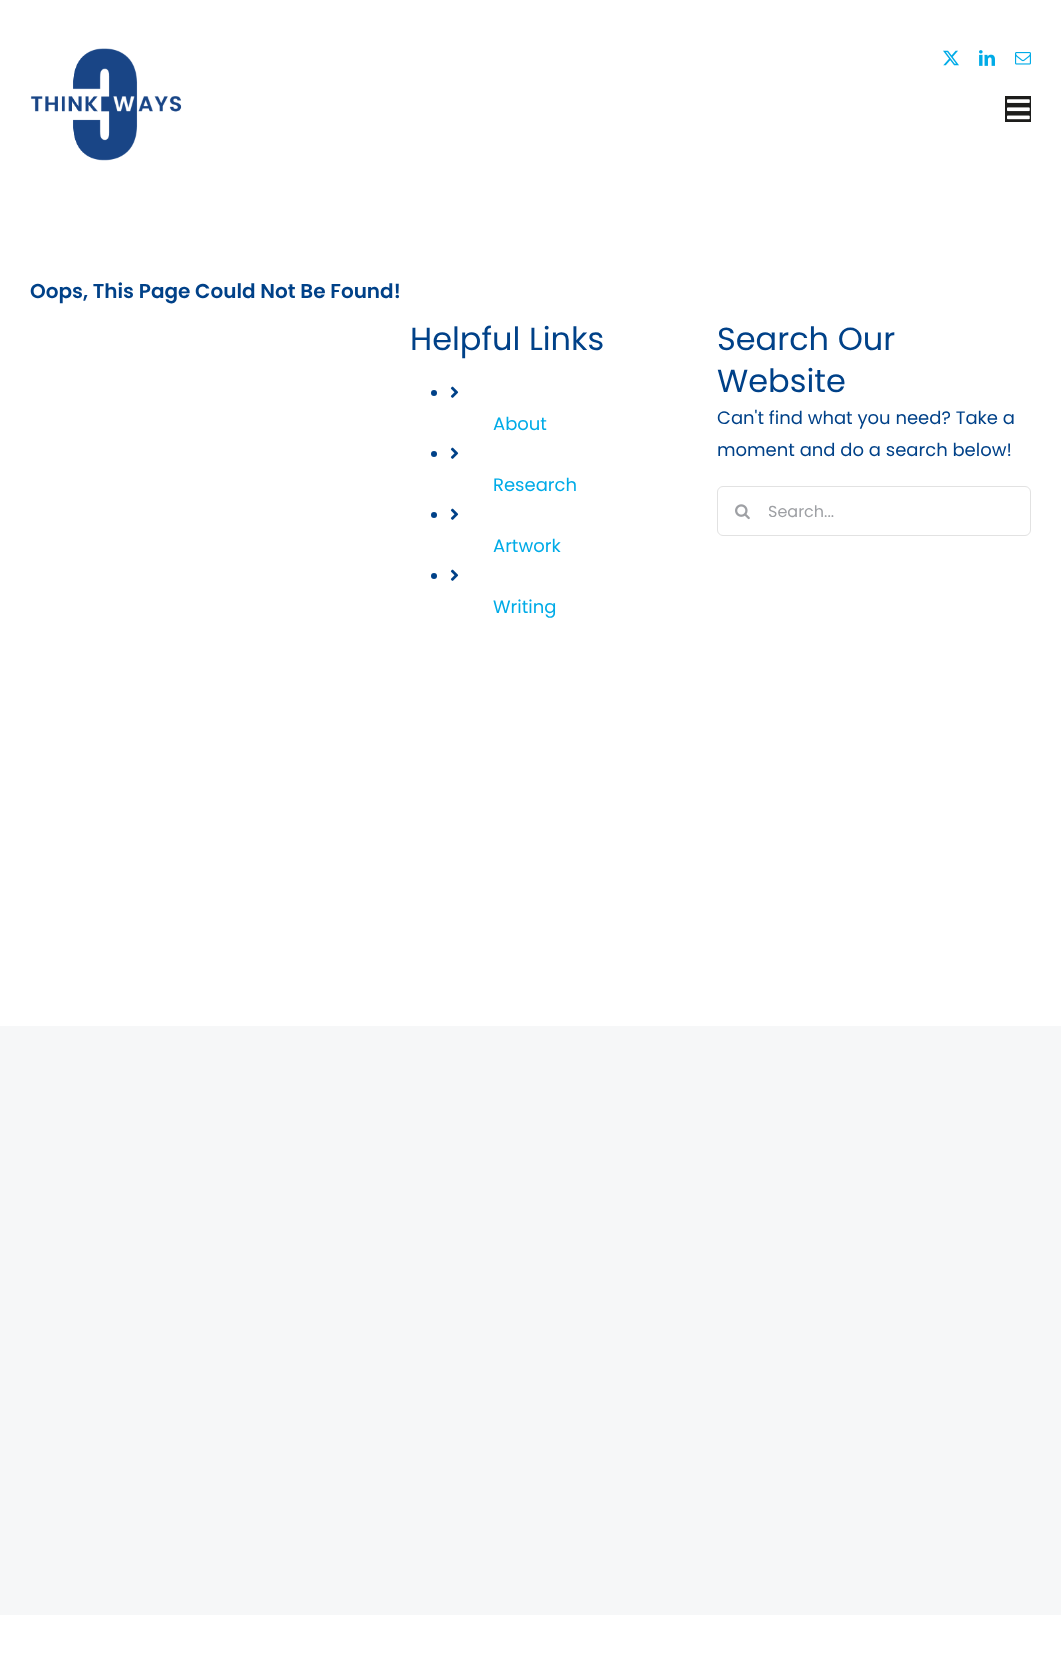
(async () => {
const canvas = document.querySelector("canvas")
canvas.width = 1061
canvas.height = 1669
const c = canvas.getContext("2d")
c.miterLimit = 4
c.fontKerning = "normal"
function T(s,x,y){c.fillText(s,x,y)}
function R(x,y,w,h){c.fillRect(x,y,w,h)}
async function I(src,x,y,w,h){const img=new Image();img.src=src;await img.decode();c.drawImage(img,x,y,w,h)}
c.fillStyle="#fff"
R(0,0,1061,1669)
await I("1.png",30,48,152,113)
await I("2.png",943,50,16,16)
await I("3.png",979,50,16,16)
await I("4.png",1015,52,16,13)
c.fillStyle="#1d1d1b"
R(1005,96,26,26)
await I("5.png",1007,99,23,21)
c.font="600 20px Poppins"
c.fillStyle="#004188"
T("Oops, This Page Could Not Be Found!",30,298)
c.font="32px Poppins"
T("Helpful Links",410,350)
c.beginPath()
c.arc(434,393,3,0,7)
c.fill()
await I("6.png",450,386,9,12)
c.font="18px Poppins"
c.fillStyle="#00abe7"
T("About",493,430)
c.fillStyle="#004188"
c.beginPath()
c.arc(434,454,3,0,7)
c.fill()
await I("6.png",450,447,9,12)
c.fillStyle="#00abe7"
T("Research",493,491)
c.fillStyle="#004188"
c.beginPath()
c.arc(434,515,3,0,7)
c.fill()
await I("6.png",450,508,9,12)
c.fillStyle="#00abe7"
T("Artwork",493,552)
c.fillStyle="#004188"
c.beginPath()
c.arc(434,576,3,0,7)
c.fill()
await I("6.png",450,569,9,12)
c.fillStyle="#00abe7"
T("Writing",493,613)
c.font="32px Poppins"
c.fillStyle="#004188"
T("Search Our",717,350)
T("Website",717,392)
c.font="18px Poppins"
T("Can't find what you need? Take a",717,424)
T("moment and do a search below!",717,456)
c.beginPath()
c.roundRect(717.5,486.5,313,49,5.5)
c.strokeStyle="#e2e2e2"
c.stroke()
await I("7.png",735,504,15,16)
c.font="16px Poppins"
c.fillStyle="#9ea0a4"
T("Search...",768,517)
c.fillStyle="#f6f7f8"
R(0,1026,1061,589)
})()
